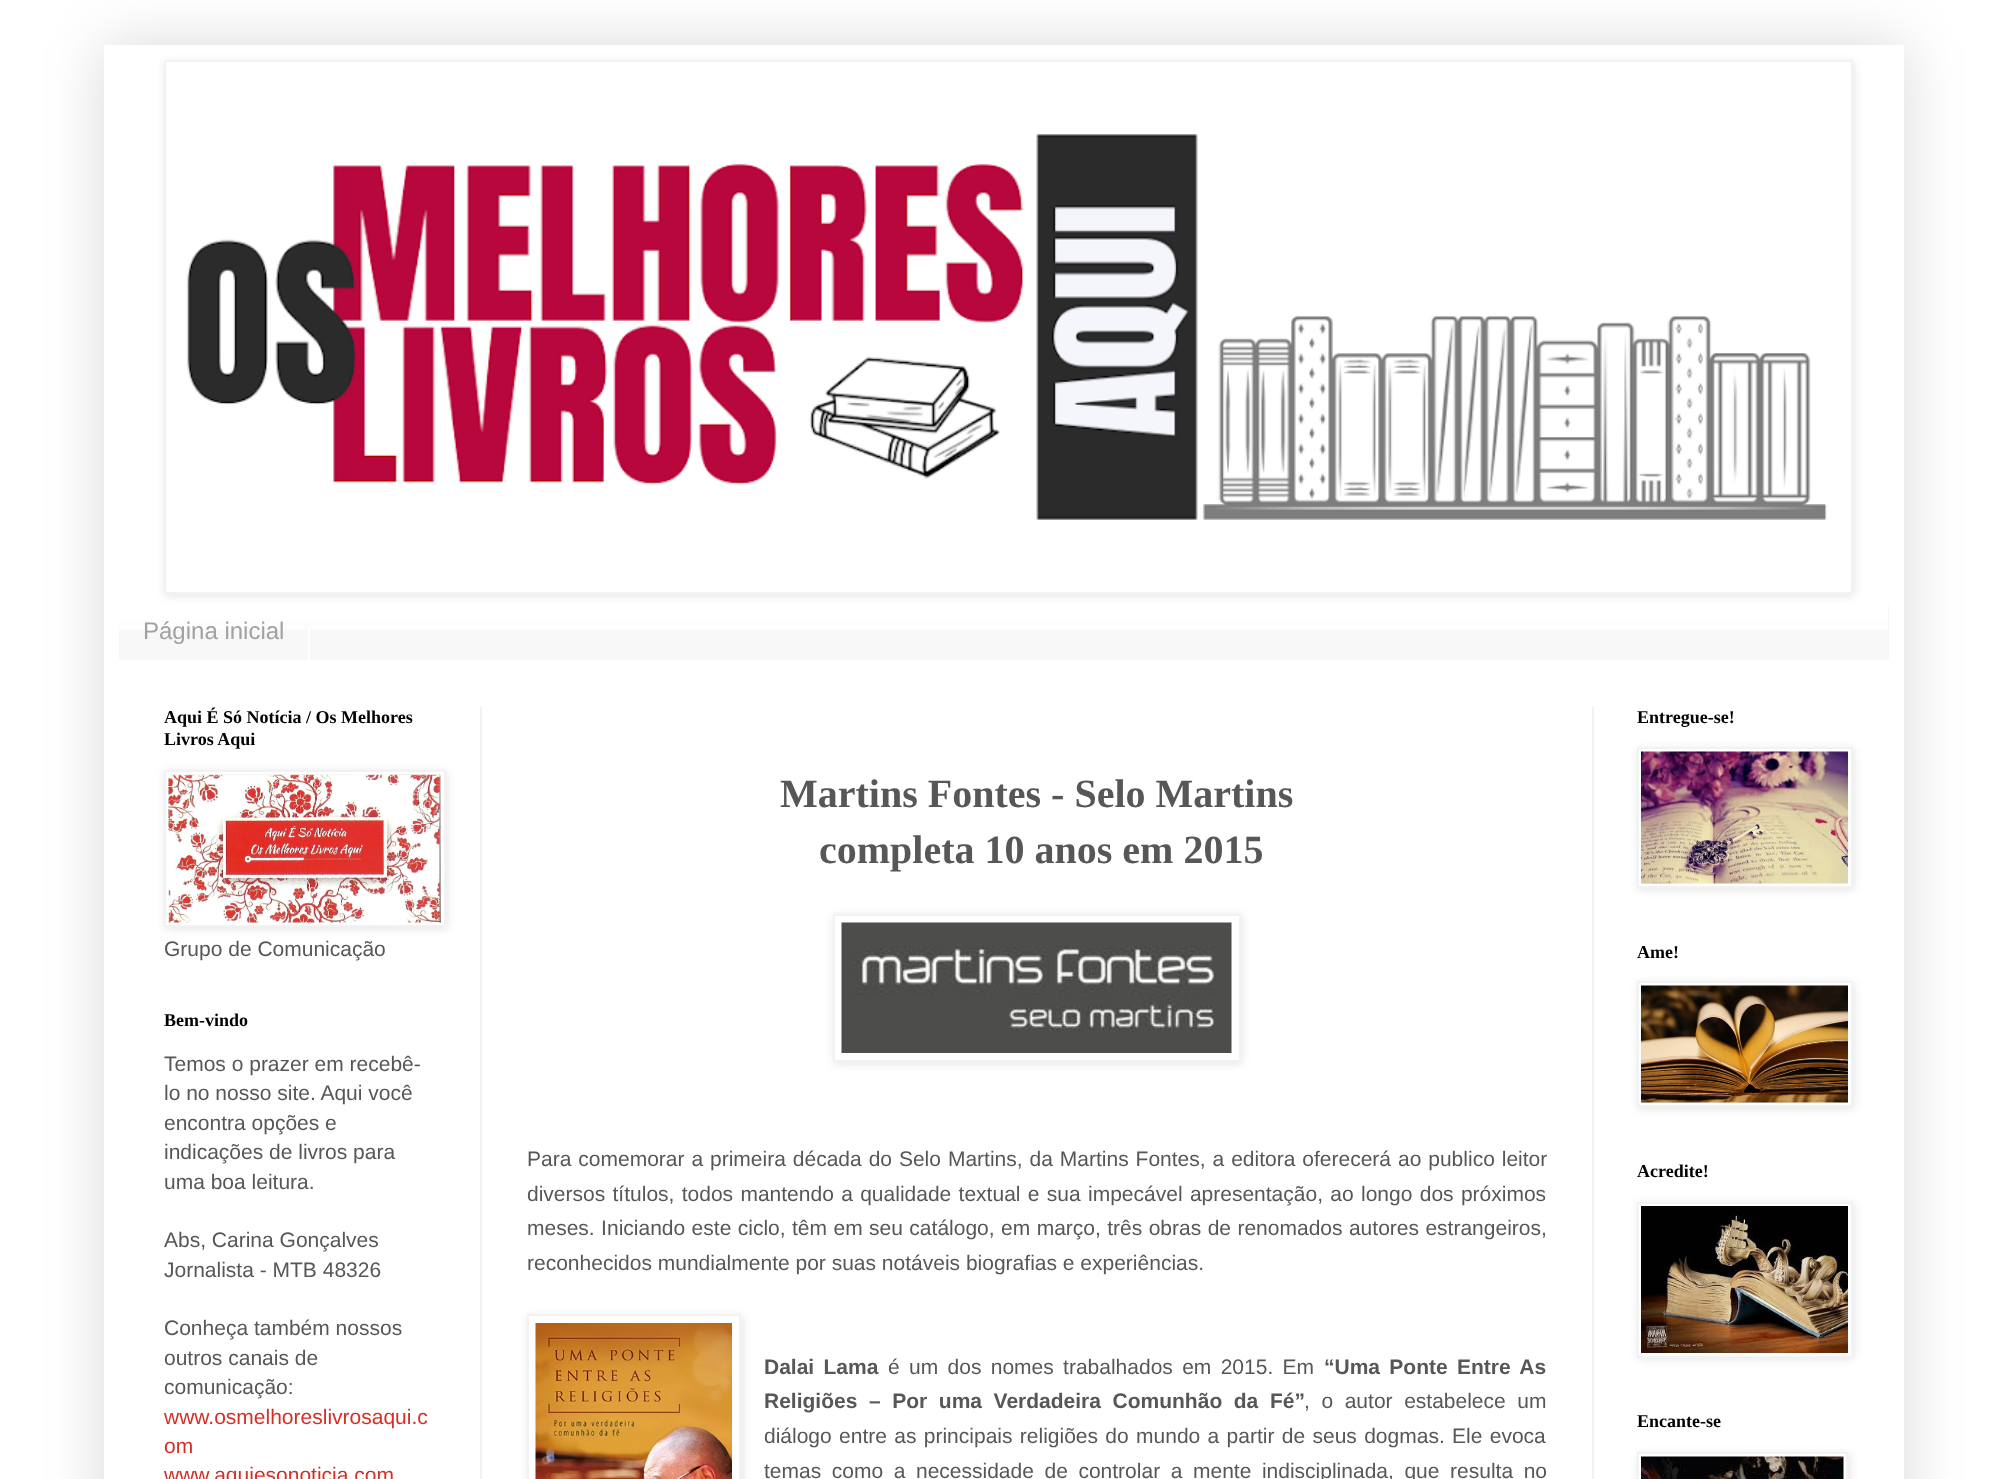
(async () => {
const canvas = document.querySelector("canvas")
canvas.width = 2007
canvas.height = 1479
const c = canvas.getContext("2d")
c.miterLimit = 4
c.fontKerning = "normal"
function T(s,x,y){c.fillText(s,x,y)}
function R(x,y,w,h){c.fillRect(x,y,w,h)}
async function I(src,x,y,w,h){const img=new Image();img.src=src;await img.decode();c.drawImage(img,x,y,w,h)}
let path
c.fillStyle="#fff"
R(0,0,2007,1479)
c.fillStyle="#00000026"
c.filter="blur(30px)"
c.beginPath()
c.rect(104,45,1800,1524)
c.fill()
c.filter="none"
c.fillStyle="#fff"
R(104,45,1800,1434)
c.fillStyle="#0000001a"
c.filter="blur(4px)"
c.beginPath()
c.rect(165,62,1689,534)
c.fill()
c.filter="none"
c.fillStyle="#fff"
c.beginPath()
c.rect(165,61,1687,532)
c.fill()
c.strokeStyle="#f2f2f2"
c.lineWidth=2
c.stroke()
await I("1.png",186,134,1641,386)
c.fillStyle="#f8f8f8"
R(119,605,1770,55)
await I("2.png",119,605,1769,25)
c.fillStyle="#fff"
R(308,627,2,33)
c.font="24px Liberation Sans"
c.fillStyle="#a1a1a1"
T("Página inicial",143,639)
c.font="bold 18px Liberation Serif"
c.fillStyle="#000"
T("Aqui É Só Notícia / Os Melhores",164,723)
T("Livros Aqui",164,745)
c.fillStyle="#0000001a"
c.filter="blur(4px)"
c.beginPath()
c.rect(165,771,282,158)
c.fill()
c.filter="none"
c.fillStyle="#fff"
c.beginPath()
c.rect(165,771,280,155)
c.fill()
c.stroke()
await I("3.png",168,774,273,149)
c.font="21px Liberation Sans"
c.fillStyle="#575757"
T("Grupo de Comunicação",164,956)
c.font="bold 18px Liberation Serif"
c.fillStyle="#000"
T("Bem-vindo",164,1026)
c.font="21px Liberation Sans"
c.fillStyle="#575757"
T("Temos o prazer em recebê-",164,1071)
T("lo no nosso site. Aqui você",164,1100)
T("encontra opções e",164,1130)
T("indicações de livros para",164,1159)
T("uma boa leitura.",164,1189)
T("Abs, Carina Gonçalves",164,1247)
T("Jornalista - MTB 48326",164,1277)
T("Conheça também nossos",164,1335)
T("outros canais de",164,1365)
T("comunicação:",164,1394)
c.fillStyle="#d42f27"
T("www.osmelhoreslivrosaqui.c",164,1424)
T("om",164,1453)
T("www.aquiesonoticia.com",164,1482)
c.font="bold 40px Liberation Serif"
c.fillStyle="#575757"
T("Martins Fontes - Selo Martins",780,807)
T("completa 10 anos em 2015",819,863)
c.fillStyle="#0000001a"
c.filter="blur(4px)"
c.beginPath()
c.rect(834,915,408,149)
c.fill()
c.filter="none"
c.fillStyle="#fff"
c.beginPath()
c.rect(834,915,406,146)
c.fill()
c.stroke()
await I("4.png",841,922,391,131)
c.wordSpacing="1.1px"
c.font="21px Liberation Sans"
c.fillStyle="#575757"
T("Para comemorar a primeira década do Selo Martins, da Martins Fontes, a editora oferecerá ao publico leitor",527,1166)
c.wordSpacing="1.5px"
T("diversos títulos, todos mantendo a qualidade textual e sua impecável apresentação, ao longo dos próximos",527,1201)
c.wordSpacing="0.6px"
T("meses. Iniciando este ciclo, têm em seu catálogo, em março, três obras de renomados autores estrangeiros,",527,1235)
c.wordSpacing="0px"
T("reconhecidos mundialmente por suas notáveis biografias e experiências.",527,1270)
c.save()
path = new Path2D("M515 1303h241v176h-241zm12 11h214v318h-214z")
c.clip(path,"evenodd")
c.fillStyle="#0000001a"
c.filter="blur(4px)"
c.beginPath()
c.rect(528,1316,215,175)
c.fill()
c.filter="none"
c.restore()
c.strokeRect(528,1315,212,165)
await I("5.png",535,1323,197,156)
c.wordSpacing="3.5px"
c.font="bold 21px Liberation Sans"
T("Dalai Lama",764,1374)
c.font="21px Liberation Sans"
T("é um dos nomes trabalhados em 2015. Em",888,1374)
c.font="bold 21px Liberation Sans"
T("“Uma Ponte Entre As",1324,1374)
c.wordSpacing="5.75px"
T("Religiões – Por uma Verdadeira Comunhão da Fé”",764,1408)
c.font="21px Liberation Sans"
T(", o autor estabelece um",1304,1408)
c.wordSpacing="1.5px"
T("diálogo entre as principais religiões do mundo a partir de seus dogmas. Ele evoca",764,1443)
c.wordSpacing="4.75px"
T("temas como a necessidade de controlar a mente indisciplinada, que resulta no",764,1478)
c.wordSpacing="0px"
c.font="bold 18px Liberation Serif"
c.fillStyle="#000"
T("Entregue-se!",1637,723)
c.fillStyle="#0000001a"
c.filter="blur(4px)"
c.beginPath()
c.rect(1638,749,216,141)
c.fill()
c.filter="none"
c.fillStyle="#fff"
c.beginPath()
c.rect(1638,748,214,139)
c.fill()
c.stroke()
await I("6.png",1641,751,207,133)
c.fillStyle="#000"
T("Ame!",1637,958)
c.fillStyle="#0000001a"
c.filter="blur(4px)"
c.beginPath()
c.rect(1638,983,216,126)
c.fill()
c.filter="none"
c.fillStyle="#fff"
c.beginPath()
c.rect(1638,982,214,124)
c.fill()
c.stroke()
await I("7.png",1641,985,207,118)
c.fillStyle="#000"
T("Acredite!",1637,1177)
c.fillStyle="#0000001a"
c.filter="blur(4px)"
c.beginPath()
c.rect(1638,1203,216,156)
c.fill()
c.filter="none"
c.fillStyle="#fff"
c.beginPath()
c.rect(1638,1203,214,154)
c.fill()
c.stroke()
await I("8.png",1641,1206,207,147)
c.fillStyle="#000"
T("Encante-se",1637,1427)
c.save()
path = new Path2D("M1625 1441h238v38h-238zm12 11h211v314h-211z")
c.clip(path,"evenodd")
c.fillStyle="#0000001a"
c.filter="blur(4px)"
c.beginPath()
c.rect(1638,1454,212,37)
c.fill()
c.filter="none"
c.restore()
c.strokeRect(1638,1453,209,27)
await I("9.png",1641,1456,203,23)
c.fillStyle="#f2f2f2"
R(480,707,2,772)
R(1592,707,2,772)
})()
